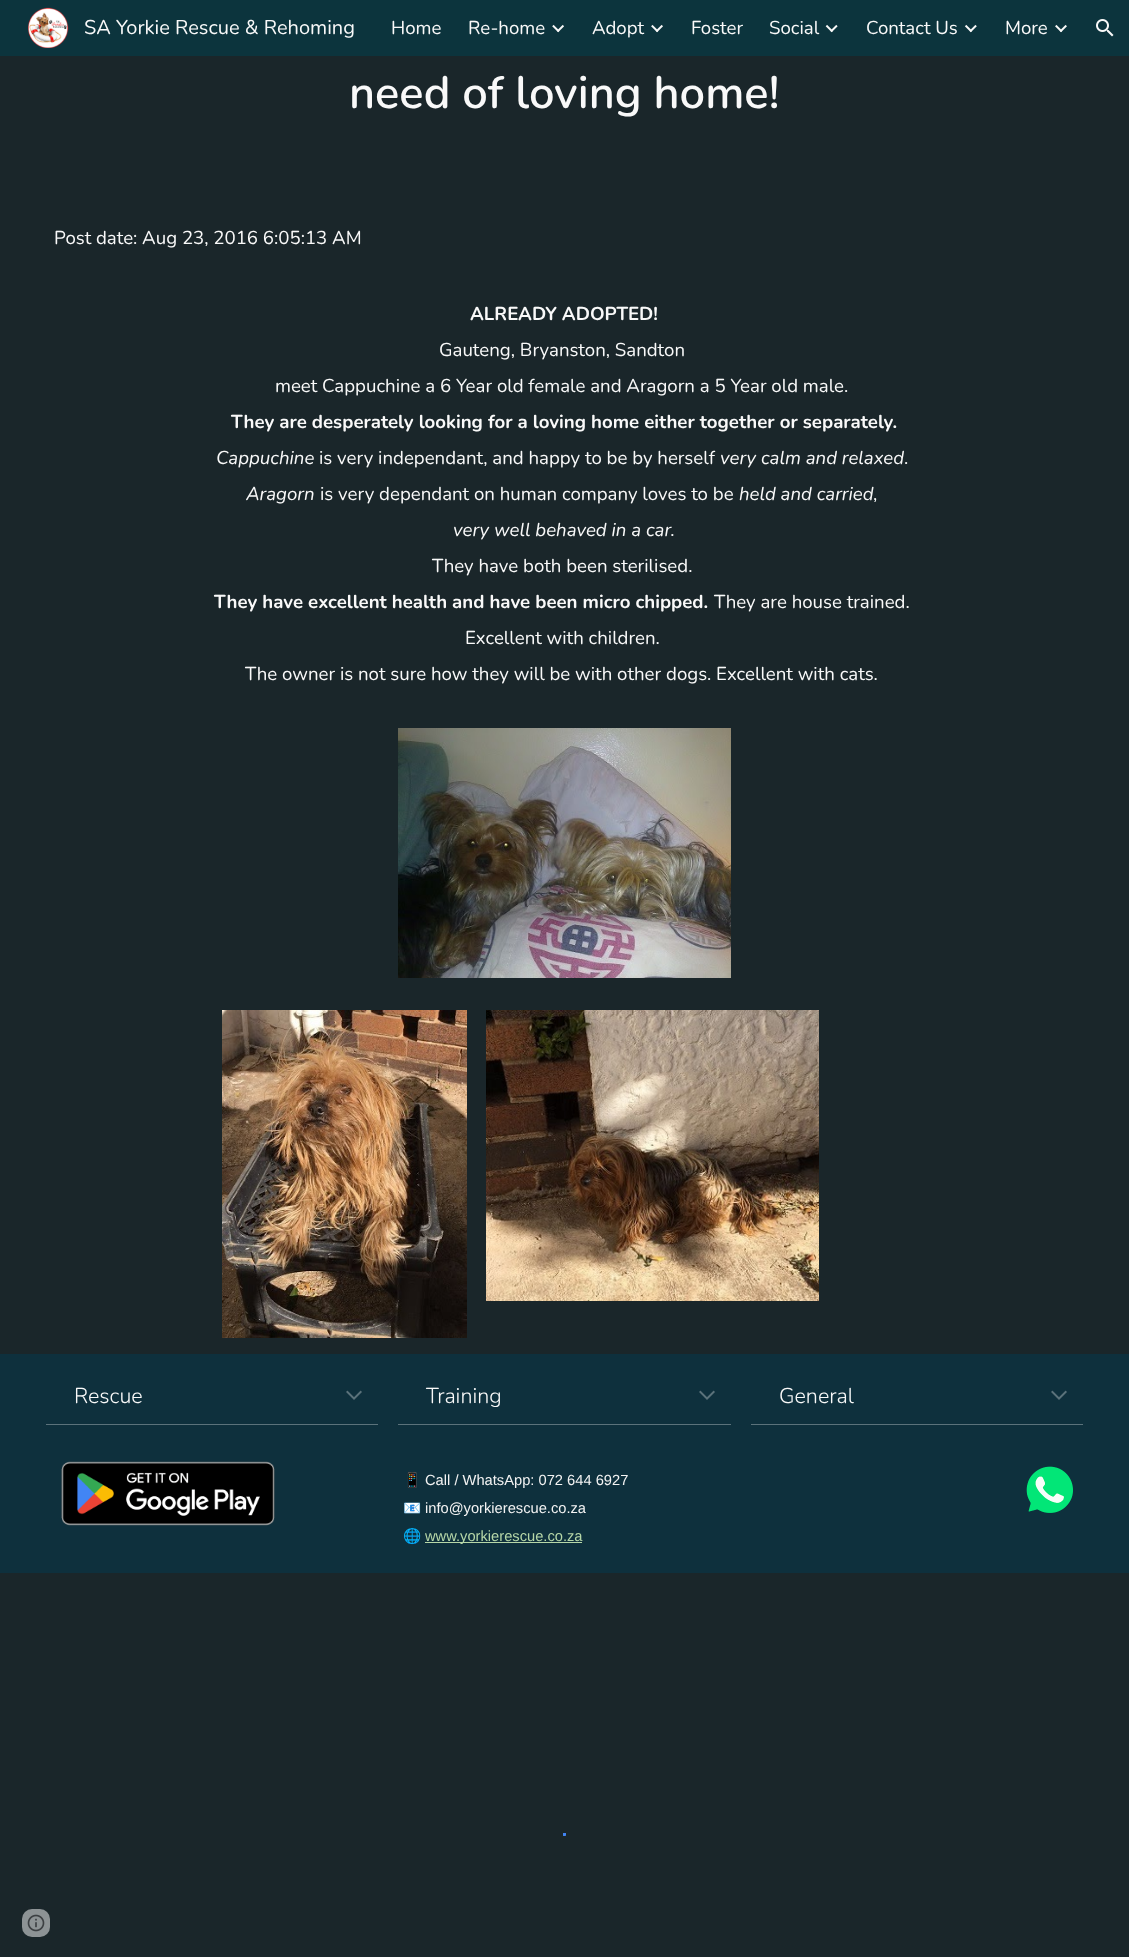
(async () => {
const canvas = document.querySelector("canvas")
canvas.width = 1129
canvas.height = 1957
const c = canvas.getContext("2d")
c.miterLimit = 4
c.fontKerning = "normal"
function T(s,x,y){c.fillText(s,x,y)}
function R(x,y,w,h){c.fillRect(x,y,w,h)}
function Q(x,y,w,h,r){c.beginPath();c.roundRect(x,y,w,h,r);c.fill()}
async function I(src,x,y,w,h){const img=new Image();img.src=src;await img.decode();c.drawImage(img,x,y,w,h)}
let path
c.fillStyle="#1a262a"
R(0,0,1129,1957)
c.fillStyle="#0c343d"
R(0,0,1129,56)
await I("1.png",28,7,41,41)
c.font="200 20px 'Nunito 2'"
c.fillStyle="#f9f9f9"
T("SA Yorkie Rescue & Rehoming",84,34)
c.font="200 18.65px 'Nunito 2'"
T("Home",391,34)
T("Re-home",468,34)
await I("2.png",552,24,12,9)
T("Adopt",592,34)
await I("3.png",651,24,12,9)
T("Foster",691,34)
T("Social",769,34)
await I("4.png",825,24,13,9)
T("Contact Us",866,34)
await I("5.png",964,24,13,9)
T("More",1005,34)
await I("6.png",1055,24,12,9)
await I("7.png",1096,19,18,18)
c.font="200 45.25px Nunito"
T("need of loving home!",349,108)
c.font="200 18.65px 'Nunito 2'"
T("Post date: Aug 23, 2016 6:05:13 AM",54,244)
c.font="200 18.65px 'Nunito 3'"
T("ALREADY ADOPTED!",470,320)
c.font="200 18.65px 'Nunito 2'"
T("Gauteng, Bryanston, Sandton",439,356)
T("meet Cappuchine a 6 Year old female and Aragorn a 5 Year old male.",275,392)
c.font="200 18.65px 'Nunito 3'"
T("They are desperately looking for a loving home either together or separately.",231,428)
c.font="italic 200 18.65px Nunito"
T("Cappuchine",216,464)
c.font="200 18.65px 'Nunito 2'"
T("is very independant, and happy to be by herself",319,464)
c.font="italic 200 18.65px Nunito"
T("very calm and relaxed",720,464)
c.font="200 18.65px 'Nunito 2'"
T(".",904,464)
c.font="italic 200 18.65px Nunito"
T("Aragorn",246,500)
c.font="200 18.65px 'Nunito 2'"
T("is very dependant on human company loves to be",320,500)
c.font="italic 200 18.65px Nunito"
T("held and carried",739,500)
c.font="200 18.65px 'Nunito 2'"
T(",",873,500)
c.font="italic 200 18.65px Nunito"
T("very well behaved in a car.",453,536)
c.font="200 18.65px 'Nunito 2'"
T("They have both been sterilised.",432,572)
c.font="200 18.65px 'Nunito 3'"
T("They have excellent health and have been micro chipped.",214,608)
c.font="200 18.65px 'Nunito 2'"
T("They are house trained.",714,608)
T("Excellent with children.",465,644)
T("The owner is not sure how they will be with other dogs. Excellent with cats.",245,680)
await I("8.png",398,728,333,250)
await I("9.png",222,1010,245,328)
await I("10.png",486,1010,333,291)
c.fillStyle="#0e303d"
R(0,1354,1129,219)
c.fillStyle="#5b727b"
R(46,1424,332,1)
c.font="200 21.5px 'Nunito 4'"
c.fillStyle="#f9f9f9"
T("Rescue",74,1403)
await I("11.png",346,1390,16,10)
c.fillStyle="#5b727b"
R(398,1424,333,1)
c.fillStyle="#f9f9f9"
T("Training",426,1403)
await I("11.png",699,1390,16,10)
c.fillStyle="#5b727b"
R(751,1424,332,1)
c.fillStyle="#f9f9f9"
T("General",779,1403)
await I("11.png",1051,1390,16,10)
await I("12.png",61,1461,214,65)
c.font="14.7px Noto Color Emoji"
c.fillStyle="#f3f3f3"
T("📱",403,1485)
c.font="14.7px Liberation Sans"
T("Call / WhatsApp: 072 644 6927",425,1485)
c.font="14.7px Noto Color Emoji"
T("📧",403,1513)
c.font="14.7px Liberation Sans"
T("info@yorkierescue.co.za",425,1513)
c.font="14.7px Noto Color Emoji"
c.fillStyle="#000"
T("🌐",403,1541)
c.fillStyle="#b6d7a8"
R(425,1542,157,1)
c.font="14.7px Liberation Sans"
T("www.yorkierescue.co.za",425,1541)
await I("13.png",1026,1466,47,47)
c.save()
c.beginPath()
c.rect(551,1833,14,28)
c.clip()
path = new Path2D("M563.5 1834.5c16.5-1.5 18.5 23.5 2 25")
c.strokeStyle="#4284f2"
c.lineWidth=3
c.stroke(path)
c.restore()
c.save()
c.beginPath()
c.rect(563,1833,3,28)
c.clip()
path = new Path2D("M556 1856c-3-3-4-7.5-3.5-11.5c1-3 2.5-6 5.5-8c12-8.5 25 9 15 19.5")
c.strokeStyle="#4284f2"
c.lineWidth=3
c.stroke(path)
c.restore()
c.save()
c.beginPath()
c.rect(565,1833,14,28)
c.clip()
path = new Path2D("M563.5 1859.5c-16.5-1.5-14.5-26.5 2-25")
c.strokeStyle="#4284f2"
c.lineWidth=3
c.stroke(path)
c.restore()
c.save()
c.beginPath()
c.rect(551,1833,14,28)
c.clip()
path = new Path2D("M563.5 1834.5c16.5-1.5 18.5 23.5 2 25m-2-25c16.5-1.5 18.5 23.5 2 25")
c.strokeStyle="#4284f2"
c.lineWidth=3
c.stroke(path)
c.restore()
c.fillStyle="#8d9395"
Q(22,1909,28,28,10)
await I("14.png",27,1914,18,18)
})()
